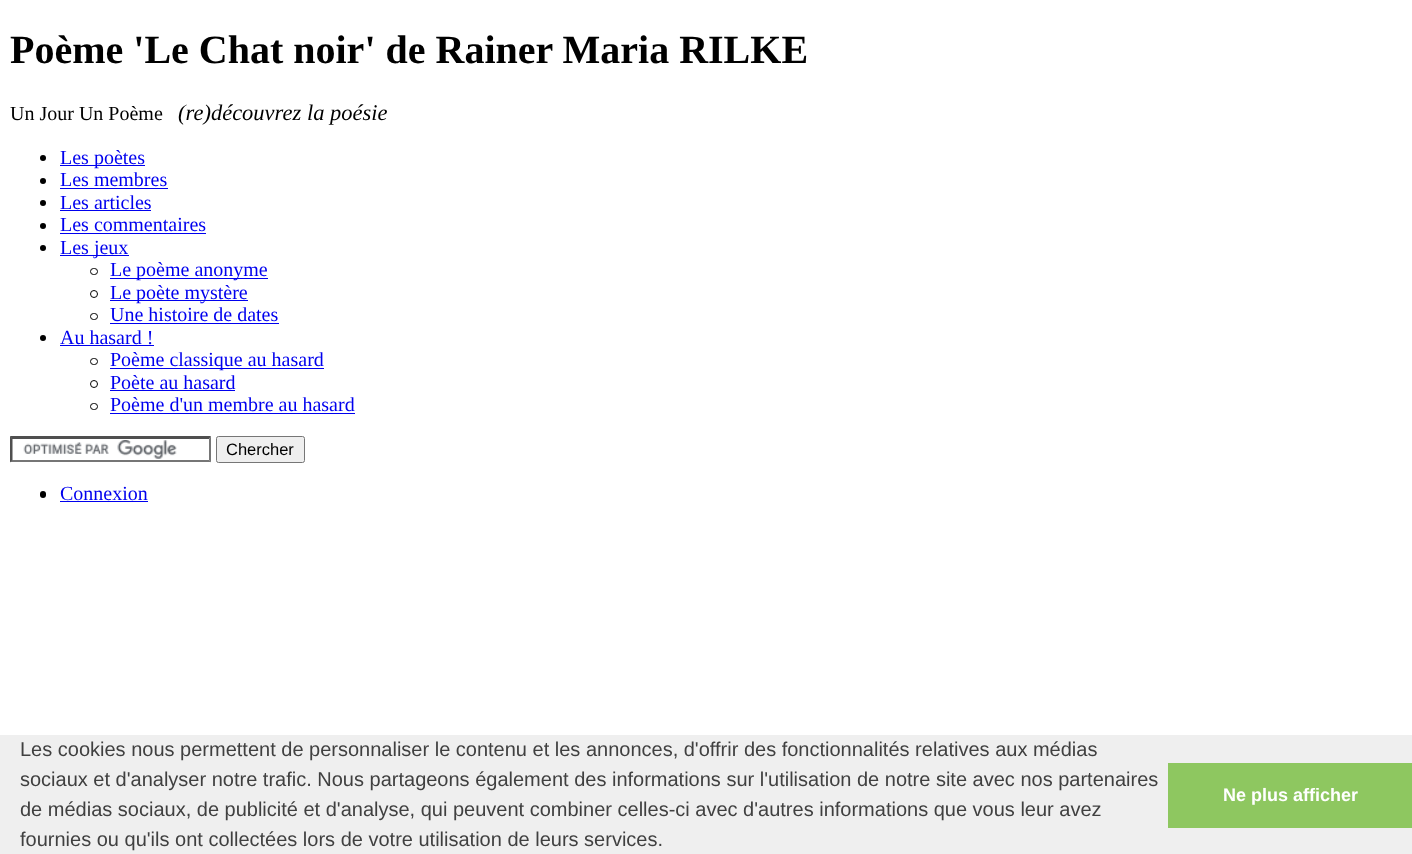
(async () => {
const canvas = document.querySelector("canvas")
canvas.width = 1412
canvas.height = 854
const c = canvas.getContext("2d")
c.miterLimit = 4
c.fontKerning = "normal"
function T(s,x,y){c.fillText(s,x,y)}
function R(x,y,w,h){c.fillRect(x,y,w,h)}
function Q(x,y,w,h,r){c.beginPath();c.roundRect(x,y,w,h,r);c.fill()}
async function I(src,x,y,w,h){const img=new Image();img.src=src;await img.decode();c.drawImage(img,x,y,w,h)}
let path
c.fillStyle="#fff"
R(0,0,1412,854)
c.font="bold 40px Liberation Serif"
c.fillStyle="#000"
T("Poème 'Le Chat noir' de Rainer Maria RILKE",10,63)
c.font="20px Liberation Serif"
T("Un Jour Un Poème",10,120)
c.font="italic 22.5px Liberation Serif"
T("(re)découvrez la poésie",178,120)
c.beginPath()
c.arc(43,158,3,0,7)
c.fill()
c.fillStyle="#00e"
R(60,165,85,1)
c.font="20px Liberation Serif"
T("Les poètes",60,164)
c.fillStyle="#000"
c.beginPath()
c.arc(43,181,3,0,7)
c.fill()
c.fillStyle="#00e"
T("Les membres",60,186)
R(60,188,108,1)
c.fillStyle="#000"
c.beginPath()
c.arc(43,203,3,0,7)
c.fill()
c.fillStyle="#00e"
T("Les articles",60,209)
R(60,210,91,1)
c.fillStyle="#000"
c.beginPath()
c.arc(43,226,3,0,7)
c.fill()
c.fillStyle="#00e"
T("Les commentaires",60,231)
R(60,233,146,1)
c.fillStyle="#000"
c.beginPath()
c.arc(43,248,3,0,7)
c.fill()
c.fillStyle="#00e"
R(60,255,69,1)
T("Les jeux",60,254)
c.beginPath()
c.roundRect(90.5,268.5,7,6,3)
c.strokeStyle="#000"
c.stroke()
R(110,278,158,1)
T("Le poème anonyme",110,276)
c.beginPath()
c.arc(94,294,3.5,0,7)
c.stroke()
R(110,300,138,1)
T("Le poète mystère",110,299)
c.beginPath()
c.roundRect(90.5,313.5,7,6,3)
c.stroke()
T("Une histoire de dates",110,321)
R(110,323,169,1)
c.fillStyle="#000"
c.beginPath()
c.arc(43,338,3,0,7)
c.fill()
c.fillStyle="#00e"
T("Au hasard !",60,344)
R(60,345,94,1)
c.beginPath()
c.roundRect(90.5,358.5,7,6,3)
c.stroke()
R(110,368,214,1)
T("Poème classique au hasard",110,366)
c.beginPath()
c.arc(94,384,3.5,0,7)
c.stroke()
T("Poète au hasard",110,389)
R(110,390,125,1)
c.beginPath()
c.roundRect(90.5,403.5,7,6,3)
c.stroke()
T("Poème d'un membre au hasard",110,411)
R(110,413,245,1)
await I("1.png",23,440,154,19)
c.fillStyle="#4f4f4f"
path = new Path2D("M10 436h201l-2 3h-197z")
c.fill(path)
c.fillStyle="#767676"
path = new Path2D("M211 436v26.5l-2-2.5v-21z")
c.fill(path)
path = new Path2D("M211 462h-201l2-2h197z")
c.fill(path)
c.fillStyle="#4f4f4f"
path = new Path2D("M10 462.5v-26.5l2.5 3v21z")
c.fill(path)
c.fillStyle="#efefef"
c.beginPath()
c.roundRect(216.5,436.5,88,26,2)
c.fill()
c.strokeStyle="#767676"
c.stroke()
c.font="16.5px Liberation Sans"
c.fillStyle="#000"
T("Chercher",226,455)
Q(40,491,6,7,3)
c.font="20px Liberation Serif"
c.fillStyle="#00e"
T("Connexion",60,500)
R(60,501,88,1)
c.fillStyle="#efefef"
R(0,735,1412,119)
c.font="20px Liberation Sans"
c.fillStyle="#404040"
T("Les cookies nous permettent de personnaliser le contenu et les annonces, d'offrir des fonctionnalités relatives aux médias",20,756)
T("sociaux et d'analyser notre trafic. Nous partageons également des informations sur l'utilisation de notre site avec nos partenaires",20,786)
T("de médias sociaux, de publicité et d'analyse, qui peuvent combiner celles-ci avec d'autres informations que vous leur avez",20,816)
T("fournies ou qu'ils ont collectées lors de votre utilisation de leurs services.",20,846)
c.fillStyle="#8ec760"
R(1168,763,244,65)
c.font="bold 18px Liberation Sans"
c.fillStyle="#fff"
T("Ne plus afficher",1223,801)
})()
